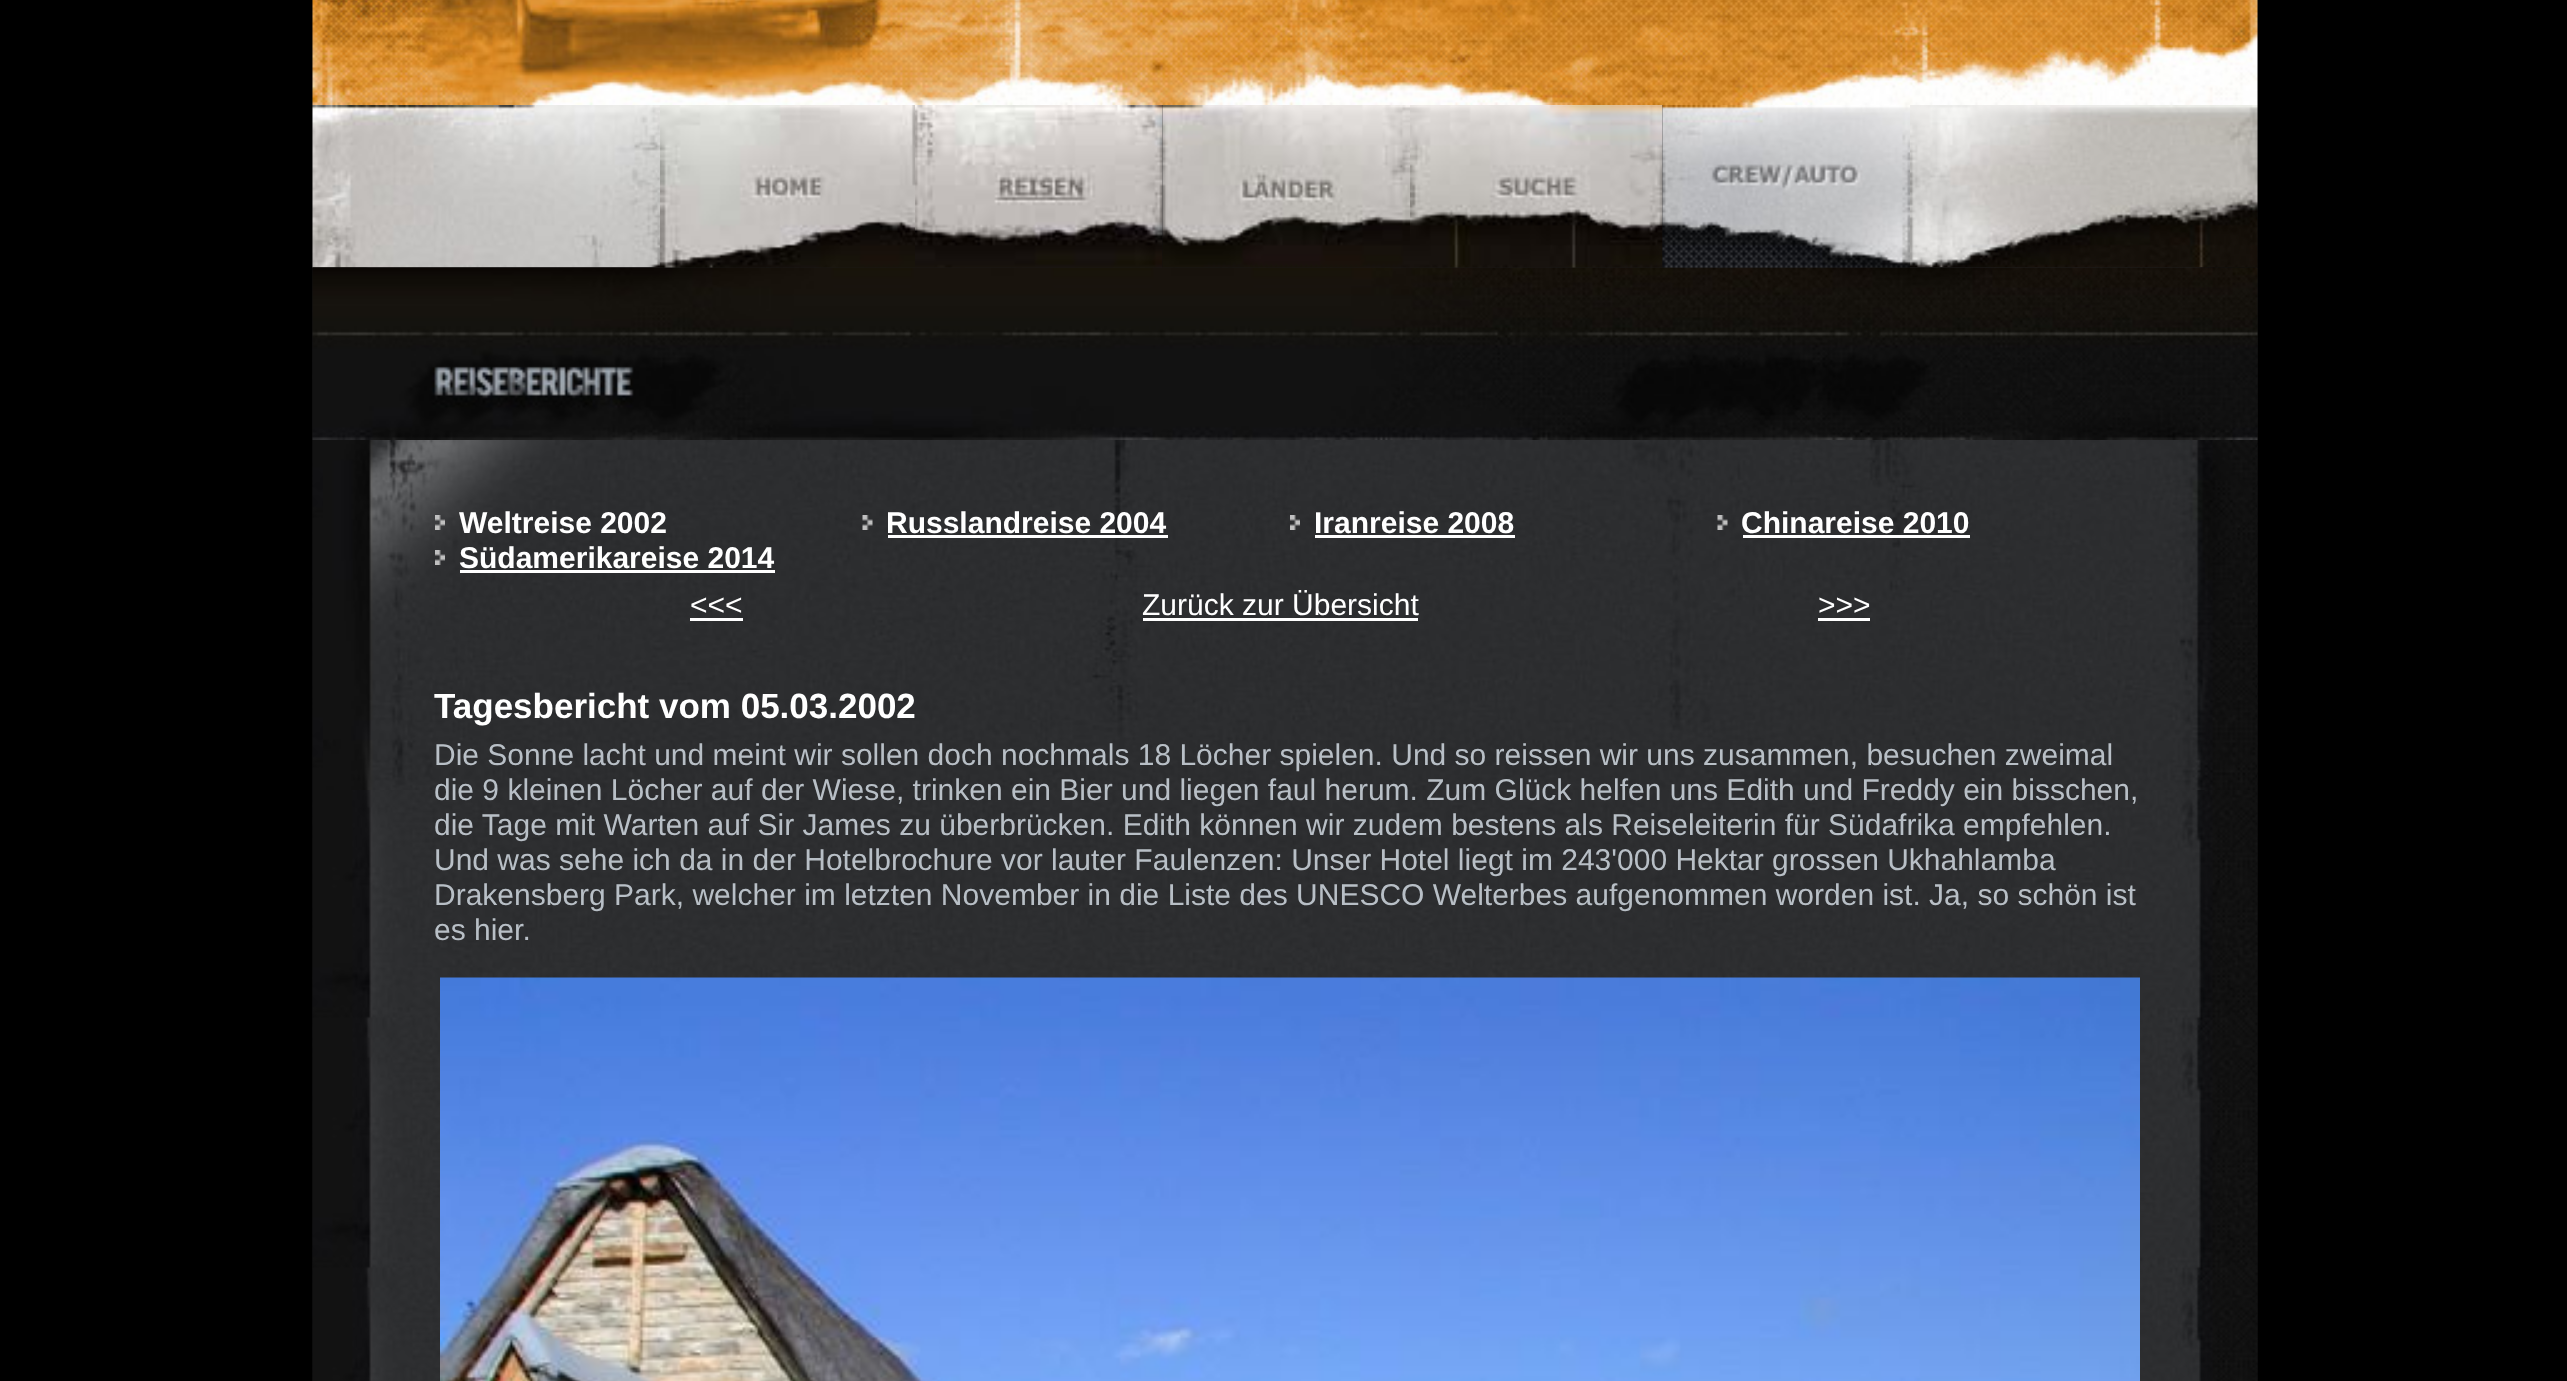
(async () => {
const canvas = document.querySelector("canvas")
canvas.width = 2567
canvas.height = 1381
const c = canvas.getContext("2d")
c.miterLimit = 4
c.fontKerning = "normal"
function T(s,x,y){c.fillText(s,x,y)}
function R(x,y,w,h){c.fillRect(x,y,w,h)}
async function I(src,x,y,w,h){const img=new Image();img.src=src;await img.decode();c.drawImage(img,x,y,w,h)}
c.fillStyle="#000"
R(0,0,2567,1381)
await I("1.png",312,0,1946,1381)
await I("2.png",312,0,1946,105)
await I("3.png",312,105,351,163)
await I("4.png",1910,105,348,163)
await I("10.png",312,267,1946,1114)
await I("11.png",312,267,1946,173)
await I("5.png",660,105,255,163)
await I("6.png",915,105,248,163)
await I("7.png",1162,105,248,163)
await I("8.png",1410,105,253,163)
await I("9.png",1662,105,248,163)
await I("12.png",323,440,1934,350)
await I("13.png",435,515,10,15)
c.font="bold 30px Liberation Sans"
c.fillStyle="#fff"
T("Weltreise 2002",459,533)
await I("14.png",862,515,11,15)
T("Russlandreise 2004",886,533)
R(888,535,280,3)
await I("15.png",1290,515,10,15)
T("Iranreise 2008",1314,533)
R(1315,535,200,3)
await I("16.png",1717,515,11,15)
T("Chinareise 2010",1741,533)
R(1743,535,227,3)
await I("17.png",435,550,10,15)
T("Südamerikareise 2014",459,568)
R(460,570,315,3)
c.font="30px Liberation Sans"
T("<<<",690,615)
R(690,618,53,3)
T("Zurück zur Übersicht",1142,615)
R(1143,618,275,3)
T(">>>",1818,615)
R(1818,618,52,3)
c.font="bold 35px Liberation Sans"
T("Tagesbericht vom 05.03.2002",434,718)
c.font="30px Liberation Sans"
c.fillStyle="#b8bfc6"
T("Die Sonne lacht und meint wir sollen doch nochmals 18 Löcher spielen. Und so reissen wir uns zusammen, besuchen zweimal",434,765)
T("die 9 kleinen Löcher auf der Wiese, trinken ein Bier und liegen faul herum. Zum Glück helfen uns Edith und Freddy ein bisschen,",434,800)
T("die Tage mit Warten auf Sir James zu überbrücken. Edith können wir zudem bestens als Reiseleiterin für Südafrika empfehlen.",434,835)
T("Und was sehe ich da in der Hotelbrochure vor lauter Faulenzen: Unser Hotel liegt im 243'000 Hektar grossen Ukhahlamba",434,870)
T("Drakensberg Park, welcher im letzten November in die Liste des UNESCO Welterbes aufgenommen worden ist. Ja, so schön ist",434,905)
T("es hier.",434,940)
await I("18.png",440,977,1700,404)
})()
